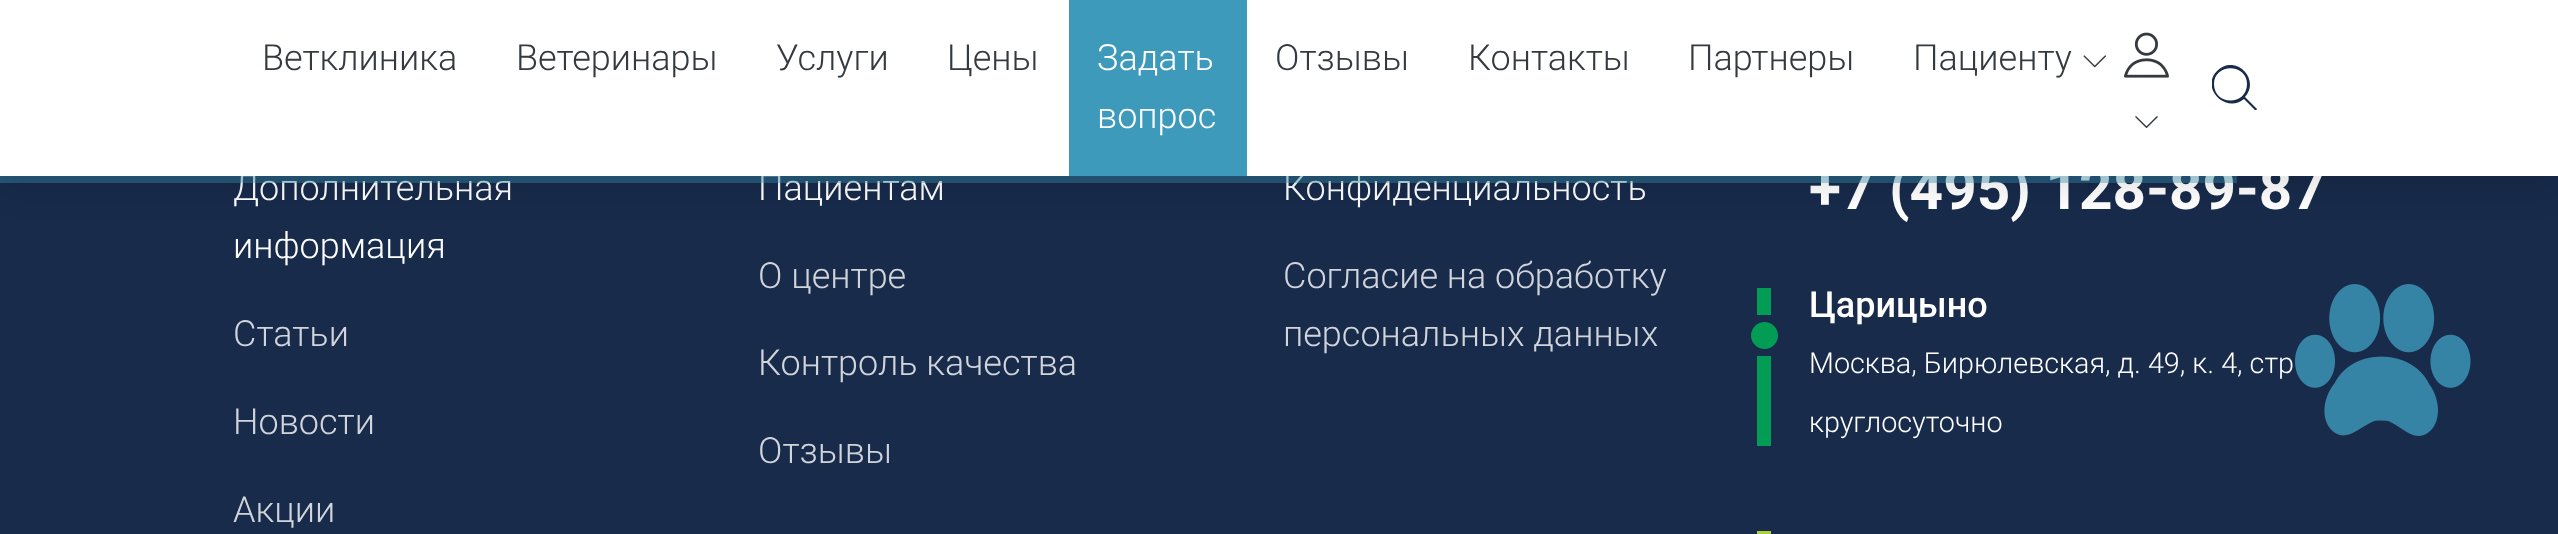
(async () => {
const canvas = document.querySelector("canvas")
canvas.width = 2558
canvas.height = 534
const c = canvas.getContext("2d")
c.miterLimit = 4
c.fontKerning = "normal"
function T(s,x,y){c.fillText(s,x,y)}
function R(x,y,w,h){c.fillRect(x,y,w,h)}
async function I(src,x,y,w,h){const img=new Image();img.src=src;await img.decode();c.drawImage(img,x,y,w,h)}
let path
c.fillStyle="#182b4b"
R(0,0,2558,534)
c.font="300 36px Roboto"
c.fillStyle="#fff"
T("Дополнительная",233,200)
T("Пациентам",758,200)
T("Конфиденциальность",1283,200)
c.font="bold 58.5px Roboto"
T("+7 (495) 128-89-87",1809,209)
c.fillStyle="#3d9abb66"
R(0,176,2237,7)
c.fillStyle="#0000001a"
c.filter="blur(14.5px)"
c.beginPath()
c.rect(0,16,2558,175)
c.fill()
c.filter="none"
c.fillStyle="#fff"
R(0,0,2558,176)
c.font="300 36px Roboto"
c.fillStyle="#343a40"
T("Ветклиника",262,70)
T("Ветеринары",516,70)
T("Услуги",776,70)
T("Цены",947,70)
c.fillStyle="#3d9abb"
R(1069,0,178,176)
c.fillStyle="#fff"
T("Задать",1097,70)
T("вопрос",1097,128)
c.fillStyle="#343a40"
T("Отзывы",1275,70)
T("Контакты",1468,70)
T("Партнеры",1688,70)
T("Пациенту",1913,70)
await I("1.png",2083,55,23,13)
await I("2.png",2124,32,45,46)
await I("3.png",2135,116,23,12)
c.save()
c.beginPath()
c.rect(2212,65,45,45)
c.clip()
c.fillStyle="#182b4b"
path = new Path2D("M2256 108l-11-11c16-18-10-44-28-26c-17 17 9 43 27 28l11 11c1 1 3-1 1-2zm-42-24c0-21 33-21 33 0c0 22-33 22-33 0z")
c.fill(path)
c.restore()
c.fillStyle="#fff"
T("информация",233,258)
c.fillStyle="#d1d5db"
T("Статьи",233,346)
T("Новости",233,434)
T("Акции",233,522)
T("О центре",758,288)
T("Контроль качества",758,375)
T("Отзывы",758,463)
T("Согласие на обработку",1283,288)
T("персональных данных",1283,346)
c.fillStyle="#029c54"
c.beginPath()
c.arc(1764.5,335.5,13.5,0,7)
c.fill()
R(1757,288,14,27)
R(1757,356,14,90)
c.font="500 36px Roboto"
c.fillStyle="#fff"
T("Царицыно",1809,317)
c.font="300 28.75px Roboto"
T("Москва, Бирюлевская, д. 49, к. 4, стр",1809,373)
T("круглосуточно",1809,432)
c.fillStyle="#afcf38"
R(1757,531,14,3)
await I("4.png",2295,284,176,152)
})()
